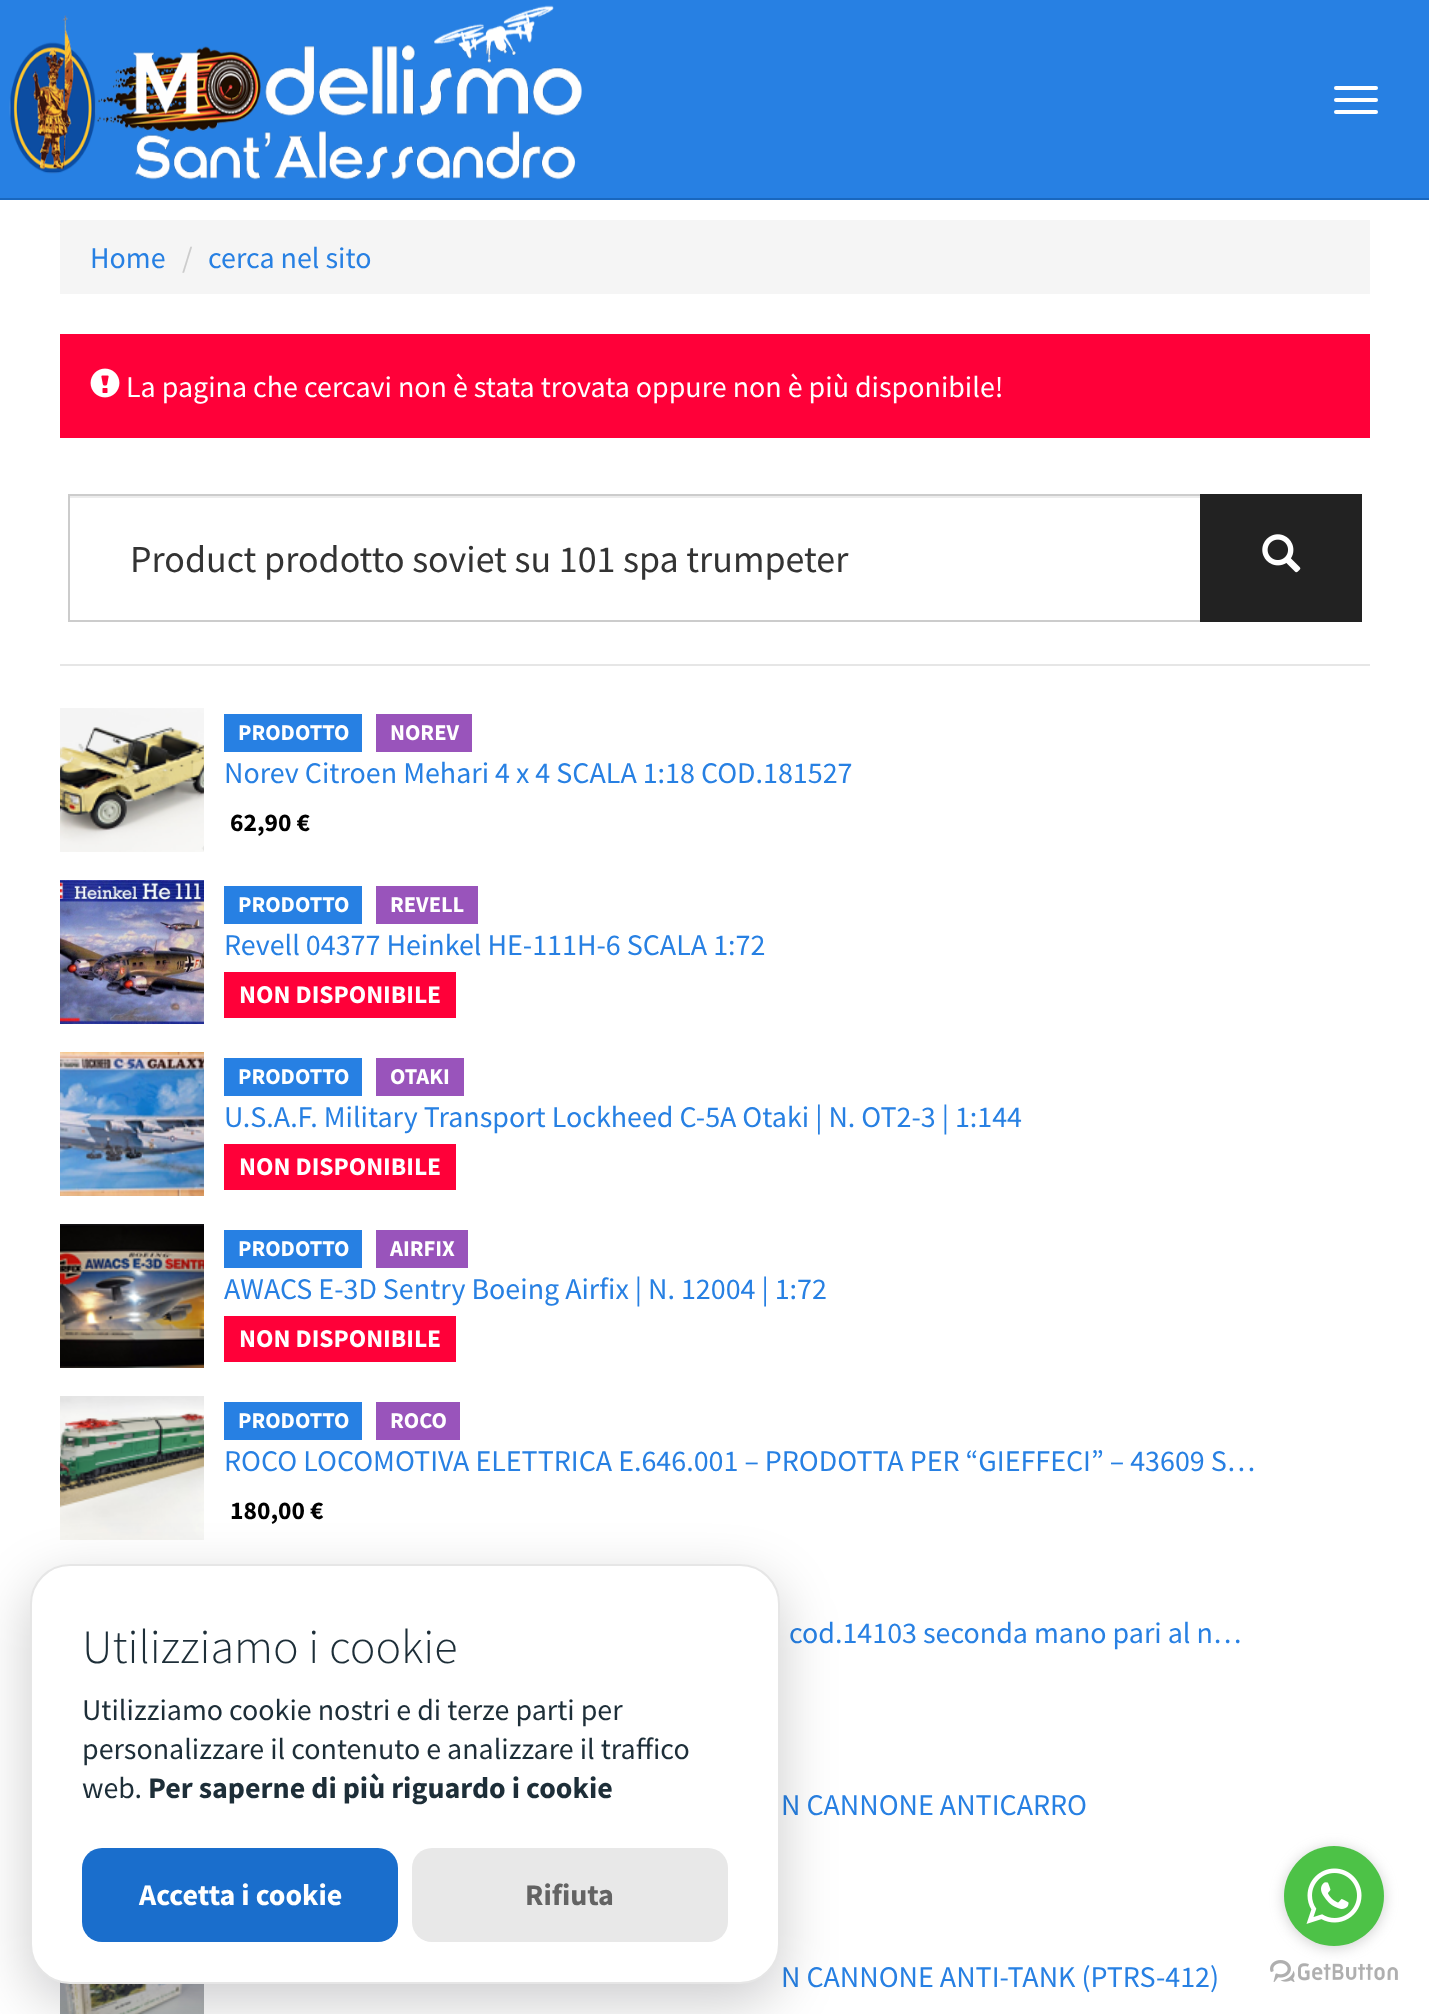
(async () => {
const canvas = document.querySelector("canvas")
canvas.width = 1429
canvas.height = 2014
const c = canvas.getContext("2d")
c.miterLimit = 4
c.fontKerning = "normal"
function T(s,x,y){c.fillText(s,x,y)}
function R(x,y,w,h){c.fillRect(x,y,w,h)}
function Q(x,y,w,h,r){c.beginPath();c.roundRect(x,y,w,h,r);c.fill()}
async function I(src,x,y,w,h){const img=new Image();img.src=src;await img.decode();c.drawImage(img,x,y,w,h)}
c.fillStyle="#fff"
R(0,0,1429,2014)
c.fillStyle="#2780e3"
R(0,0,1429,198)
c.fillStyle="#1967be"
R(0,198,1429,2)
await I("1.png",9,5,573,175)
c.fillStyle="#fff"
Q(1334,86,44,4,2)
Q(1334,98,44,4,2)
Q(1334,110,44,4,2)
c.fillStyle="#f5f5f5"
R(60,220,1310,74)
c.font="30px Source Sans Pro"
c.fillStyle="#2780e3"
T("Home",90,268)
c.fillStyle="#ccc"
T("/",182,268)
c.fillStyle="#2780e3"
T("cerca nel sito",208,268)
c.fillStyle="#ff0039"
R(60,334,1310,104)
await I("2.png",90,368,30,30)
c.fillStyle="#fff"
T("La pagina che cercavi non è stata trovata oppure non è più disponibile!",126,397)
c.fillStyle="#ececec"
R(70,496,1130,2)
c.strokeStyle="#ccc"
c.lineWidth=2
c.strokeRect(69,495,1132,126)
c.font="38px Source Sans Pro"
c.fillStyle="#333"
T("Product prodotto soviet su 101 spa trumpeter",130,572)
c.fillStyle="#222"
R(1200,494,162,128)
await I("3.png",1262,534,39,39)
c.fillStyle="#e6e6e6"
R(60,664,1310,2)
await I("4.png",60,708,144,144)
c.fillStyle="#2780e3"
R(224,714,138,38)
c.font="bold 22.5px Source Sans Pro"
c.fillStyle="#fff"
T("PRODOTTO",238,740)
c.fillStyle="#9954bb"
R(376,714,96,38)
c.fillStyle="#fff"
T("NOREV",390,740)
c.font="30px Source Sans Pro"
c.fillStyle="#2780e3"
T("Norev Citroen Mehari 4 x 4 SCALA 1:18 COD.181527",224,783)
c.font="bold 25.5px Source Sans Pro"
c.fillStyle="#000"
T("62,90 €",230,831)
await I("5.png",60,880,144,144)
c.fillStyle="#2780e3"
R(224,886,138,38)
c.font="bold 22.5px Source Sans Pro"
c.fillStyle="#fff"
T("PRODOTTO",238,912)
c.fillStyle="#9954bb"
R(376,886,102,38)
c.fillStyle="#fff"
T("REVELL",390,912)
c.font="30px Source Sans Pro"
c.fillStyle="#2780e3"
T("Revell 04377 Heinkel HE-111H-6 SCALA 1:72",224,955)
c.fillStyle="#ff0039"
R(224,972,232,46)
c.font="bold 25.5px Source Sans Pro"
c.fillStyle="#fff"
T("NON DISPONIBILE",239,1003)
await I("6.png",60,1052,144,144)
c.fillStyle="#2780e3"
R(224,1058,138,38)
c.font="bold 22.5px Source Sans Pro"
c.fillStyle="#fff"
T("PRODOTTO",238,1084)
c.fillStyle="#9954bb"
R(376,1058,88,38)
c.fillStyle="#fff"
T("OTAKI",390,1084)
c.font="30px Source Sans Pro"
c.fillStyle="#2780e3"
T("U.S.A.F. Military Transport Lockheed C-5A Otaki | N. OT2-3 | 1:144",224,1127)
c.fillStyle="#ff0039"
R(224,1144,232,46)
c.font="bold 25.5px Source Sans Pro"
c.fillStyle="#fff"
T("NON DISPONIBILE",239,1175)
await I("7.png",60,1224,144,144)
c.fillStyle="#2780e3"
R(224,1230,138,38)
c.font="bold 22.5px Source Sans Pro"
c.fillStyle="#fff"
T("PRODOTTO",238,1256)
c.fillStyle="#9954bb"
R(376,1230,92,38)
c.fillStyle="#fff"
T("AIRFIX",390,1256)
c.font="30px Source Sans Pro"
c.fillStyle="#2780e3"
T("AWACS E-3D Sentry Boeing Airfix | N. 12004 | 1:72",224,1299)
c.fillStyle="#ff0039"
R(224,1316,232,46)
c.font="bold 25.5px Source Sans Pro"
c.fillStyle="#fff"
T("NON DISPONIBILE",239,1347)
await I("8.png",60,1396,144,144)
c.fillStyle="#2780e3"
R(224,1402,138,38)
c.font="bold 22.5px Source Sans Pro"
c.fillStyle="#fff"
T("PRODOTTO",238,1428)
c.fillStyle="#9954bb"
R(376,1402,84,38)
c.fillStyle="#fff"
T("ROCO",390,1428)
c.font="30px Source Sans Pro"
c.fillStyle="#2780e3"
T("ROCO LOCOMOTIVA ELETTRICA E.646.001 – PRODOTTA PER “GIEFFECI” – 43609 S…",224,1471)
c.font="bold 25.5px Source Sans Pro"
c.fillStyle="#000"
T("180,00 €",230,1519)
c.font="30px Source Sans Pro"
c.fillStyle="#2780e3"
T("cod.14103 seconda mano pari al n…",789,1643)
T("N CANNONE ANTICARRO",781,1815)
T("N CANNONE ANTI-TANK (PTRS-412)",781,1987)
await I("9.png",60,1982,144,32)
c.fillStyle="#02020333"
c.filter="blur(28px)"
c.beginPath()
c.roundRect(30,1582,750,420,40)
c.fill()
c.filter="none"
c.fillStyle="#fff"
c.beginPath()
c.roundRect(31,1565,748,418,39)
c.fill()
c.strokeStyle="#e6e6e6"
c.stroke()
c.font="300 48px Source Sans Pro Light"
c.fillStyle="#1d2e38"
T("Utilizziamo i cookie",82,1663)
c.font="30px Source Sans Pro"
T("Utilizziamo cookie nostri e di terze parti per",82,1720)
T("personalizzare il contenuto e analizzare il traffico",82,1759)
T("web.",82,1798)
c.font="bold 30px Source Sans Pro"
T("Per saperne di più riguardo i cookie",148,1798)
c.fillStyle="#1a6ecc"
Q(82,1848,316,94,20)
c.fillStyle="#fff"
T("Accetta i cookie",139,1905)
c.fillStyle="#e8e8e8"
Q(412,1848,316,94,20)
c.fillStyle="#636363"
T("Rifiuta",525,1905)
await I("11.png",1270,1960,128,22)
c.fillStyle="#88888866"
c.filter="blur(7px)"
c.beginPath()
c.roundRect(1284,1848,100,100,50)
c.fill()
c.filter="none"
c.fillStyle="#4dc247"
c.beginPath()
c.arc(1334,1896,50,0,7)
c.fill()
await I("10.png",1306,1868,56,56)
})()
